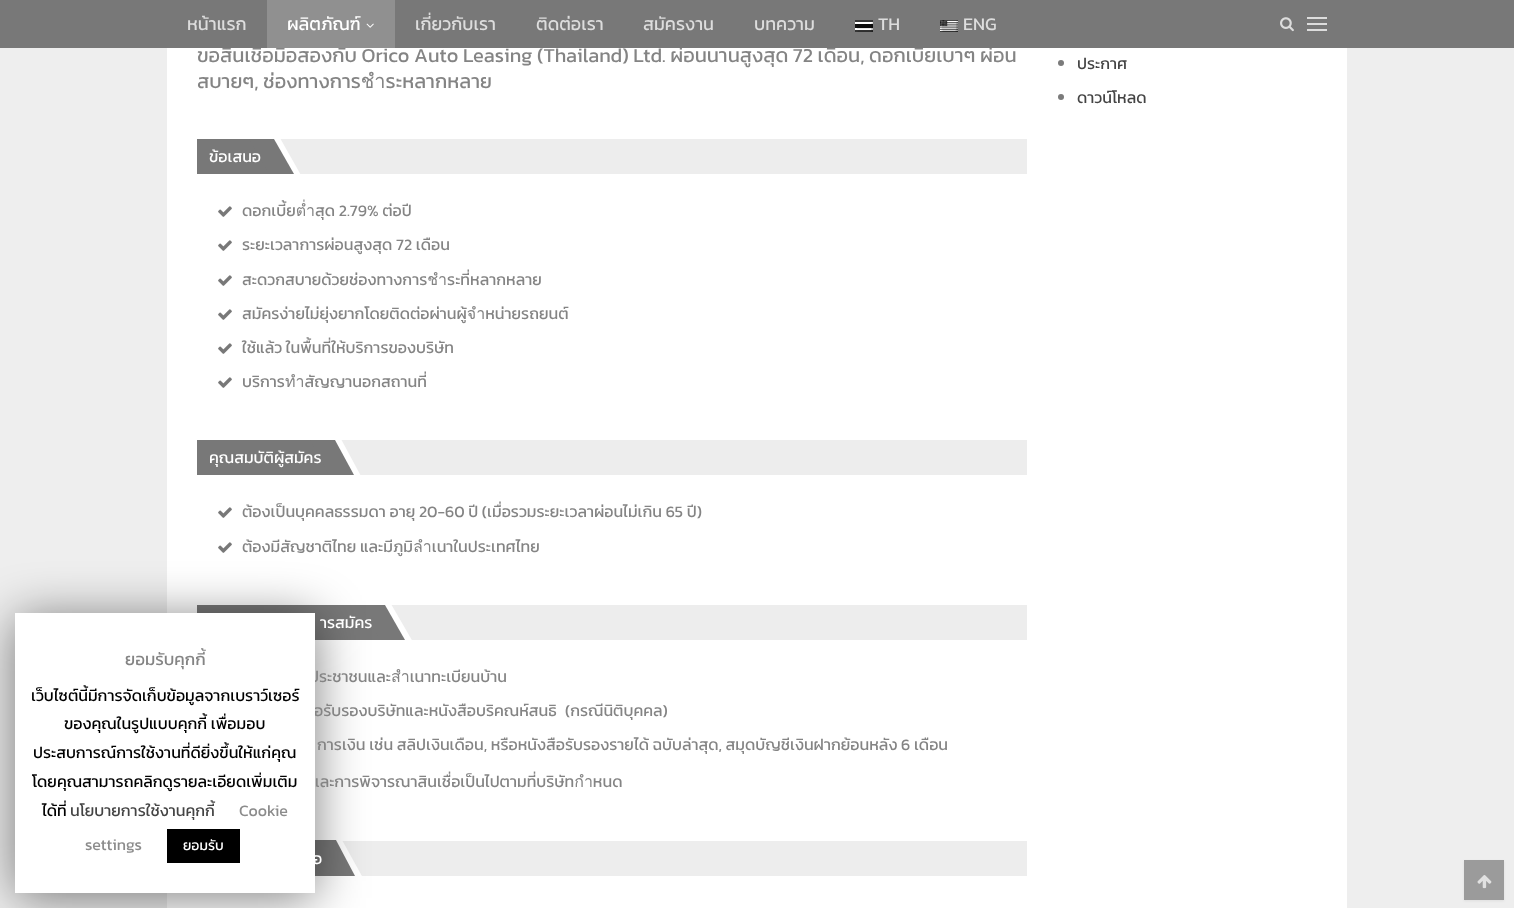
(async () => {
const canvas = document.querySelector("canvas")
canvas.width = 1514
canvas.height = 908
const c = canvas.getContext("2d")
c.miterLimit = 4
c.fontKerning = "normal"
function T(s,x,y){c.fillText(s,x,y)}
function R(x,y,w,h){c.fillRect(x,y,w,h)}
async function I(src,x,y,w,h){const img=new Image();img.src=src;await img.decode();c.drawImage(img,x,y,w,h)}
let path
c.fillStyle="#eee"
R(0,0,1514,908)
c.fillStyle="#fff"
R(167,48,1180,860)
c.font="20px Kanit"
c.fillStyle="#848484"
T("ขอสินเชื่อมือสองกับ Orico Auto Leasing (Thailand) Ltd. ผ่อนนานสูงสุด 72 เดือน, ดอกเบี้ยเบาๆ ผ่อน",197,62)
c.fillStyle="#787878"
R(0,0,1514,48)
c.font="18px Kanit"
c.fillStyle="#ddd"
T("หน้าแรก",187,30)
c.fillStyle="#909090"
R(267,0,128,48)
c.fillStyle="#fff"
T("ผลิตภัณฑ์",287,30)
await I("1.png",366,23,8,5)
c.fillStyle="#ddd"
T("เกี่ยวกับเรา",415,30)
T("ติดต่อเรา",536,30)
T("สมัครงาน",643,30)
T("บทความ",754,30)
await I("2.png",855,20,18,12)
T("TH",878,30)
await I("3.png",940,20,18,12)
T("ENG",963,30)
await I("4.png",1280,17,14,15)
R(1307,23,20,2)
R(1307,17,20,2)
R(1307,29,20,2)
await I("5.png",218,542,14,11)
c.fillStyle="#787878"
R(197,605,183,35)
c.fillStyle="#ededed"
R(391,605,636,35)
c.fillStyle="#fff"
path = new Path2D("M371 604h20l22 38h-20z")
c.fill(path)
c.fillStyle="#787878"
path = new Path2D("M360 605h25l20 35h-25z")
c.fill(path)
R(315,847,15,29)
c.fillStyle="#ededed"
R(342,841,685,35)
c.fillStyle="#fff"
path = new Path2D("M322 840h20l21 38h-20z")
c.fill(path)
c.fillStyle="#787878"
path = new Path2D("M311 840h25l19 36h-25z")
c.fill(path)
c.fillStyle="#00000080"
c.filter="blur(25px)"
c.beginPath()
c.rect(15,618,300,280)
c.fill()
c.filter="none"
c.font="16px Kanit"
c.fillStyle="#848484"
T("ประชาชนและสำเนาทะเบียนบ้าน",309,682)
T("ือรับรองบริษัทและหนังสือบริคณห์สนธิ",314,716)
T("(กรณีนิติบุคคล)",565,716)
T("และการพิจารณาสินเชื่อเป็นไปตามที่บริษัทกำหนด",311,787)
c.fillStyle="#fff"
R(15,613,300,280)
c.font="17px Kanit"
c.fillStyle="#848484"
T("ยอมรับคุกกี้",125,665)
c.font="16px Kanit"
c.fillStyle="#000"
T("เว็บไซต์นี้มีการจัดเก็บข้อมูลจากเบราว์เซอร์",31,701)
T("ของคุณในรูปแบบคุกกี้ เพื่อมอบ",64,729)
T("ประสบการณ์การใช้งานที่ดียิ่งขึ้นให้แก่คุณ",33,758)
T("โดยคุณสามารถคลิกดูรายละเอียดเพิ่มเติม",32,787)
T("ได้ที่",42,816)
c.fillStyle="#444"
T("นโยบายการใช้งานคุกกี้",70,816)
c.fillStyle="#8c8c8c"
T("Cookie",239,816)
T("settings",85,850)
c.fillStyle="#000"
R(167,829,73,34)
c.font="14px Kanit"
c.fillStyle="#fff"
T("ยอมรับ",183,850)
c.font="20px Kanit"
c.fillStyle="#848484"
T("สบายๆ, ช่องทางการชำระหลากหลาย",197,88)
c.fillStyle="#787878"
R(197,139,72,35)
c.fillStyle="#ededed"
R(280,139,747,35)
c.fillStyle="#fff"
path = new Path2D("M260 138h20l22 39h-20z")
c.fill(path)
c.fillStyle="#787878"
path = new Path2D("M249 139h25l20 35h-25z")
c.fill(path)
c.font="16px Kanit"
c.fillStyle="#fff"
T("ข้อเสนอ",209,162)
await I("5.png",218,206,14,11)
c.fillStyle="#848484"
T("ดอกเบี้ยต่ำสุด 2.79% ต่อปี",242,216)
await I("5.png",218,240,14,11)
T("ระยะเวลาการผ่อนสูงสุด 72 เดือน",242,250)
await I("5.png",218,275,14,11)
T("สะดวกสบายด้วยช่องทางการชำระที่หลากหลาย",242,285)
await I("5.png",218,309,14,11)
T("สมัครง่ายไม่ยุ่งยากโดยติดต่อผ่านผู้จำหน่ายรถยนต์",242,319)
await I("5.png",218,343,14,11)
T("ใช้แล้ว ในพื้นที่ให้บริการของบริษัท",242,353)
await I("5.png",218,377,14,11)
T("บริการทำสัญญานอกสถานที่",242,387)
c.fillStyle="#787878"
R(197,440,132,35)
c.fillStyle="#ededed"
R(341,440,686,35)
c.fillStyle="#fff"
path = new Path2D("M321 439h20l21 39h-20z")
c.fill(path)
c.fillStyle="#787878"
path = new Path2D("M310 440h25l19 35h-25z")
c.fill(path)
c.fillStyle="#fff"
T("คุณสมบัติผู้สมัคร",209,463)
await I("5.png",218,507,14,11)
c.fillStyle="#848484"
T("ต้องเป็นบุคคลธรรมดา อายุ 20-60 ปี (เมื่อรวมระยะเวลาผ่อนไม่เกิน 65 ปี)",242,517)
T("ต้องมีสัญชาติไทย และมีภูมิลำเนาในประเทศไทย",242,552)
c.fillStyle="#fff"
T("ารสมัคร",320,628)
c.fillStyle="#848484"
T("การเงิน เช่น สลิปเงินเดือน, หรือหนังสือรับรองรายได้ ฉบับล่าสุด, สมุดบัญชีเงินฝากย้อนหลัง 6 เดือน",317,750)
c.fillStyle="#fff"
T("อ",313,864)
c.fillStyle="#7b7b7b"
c.beginPath()
c.arc(1061,63,3,0,7)
c.fill()
c.fillStyle="#444"
T("ประกาศ",1077,69)
c.fillStyle="#7b7b7b"
c.beginPath()
c.arc(1061,97,3,0,7)
c.fill()
c.fillStyle="#444"
T("ดาวน์โหลด",1077,103)
c.fillStyle="#47474717"
c.filter="blur(1px)"
c.beginPath()
c.rect(1464,861,40,40)
c.fill()
c.filter="none"
c.fillStyle="#9b9b9b"
R(1464,860,40,40)
await I("6.png",1477,875,15,14)
})()
